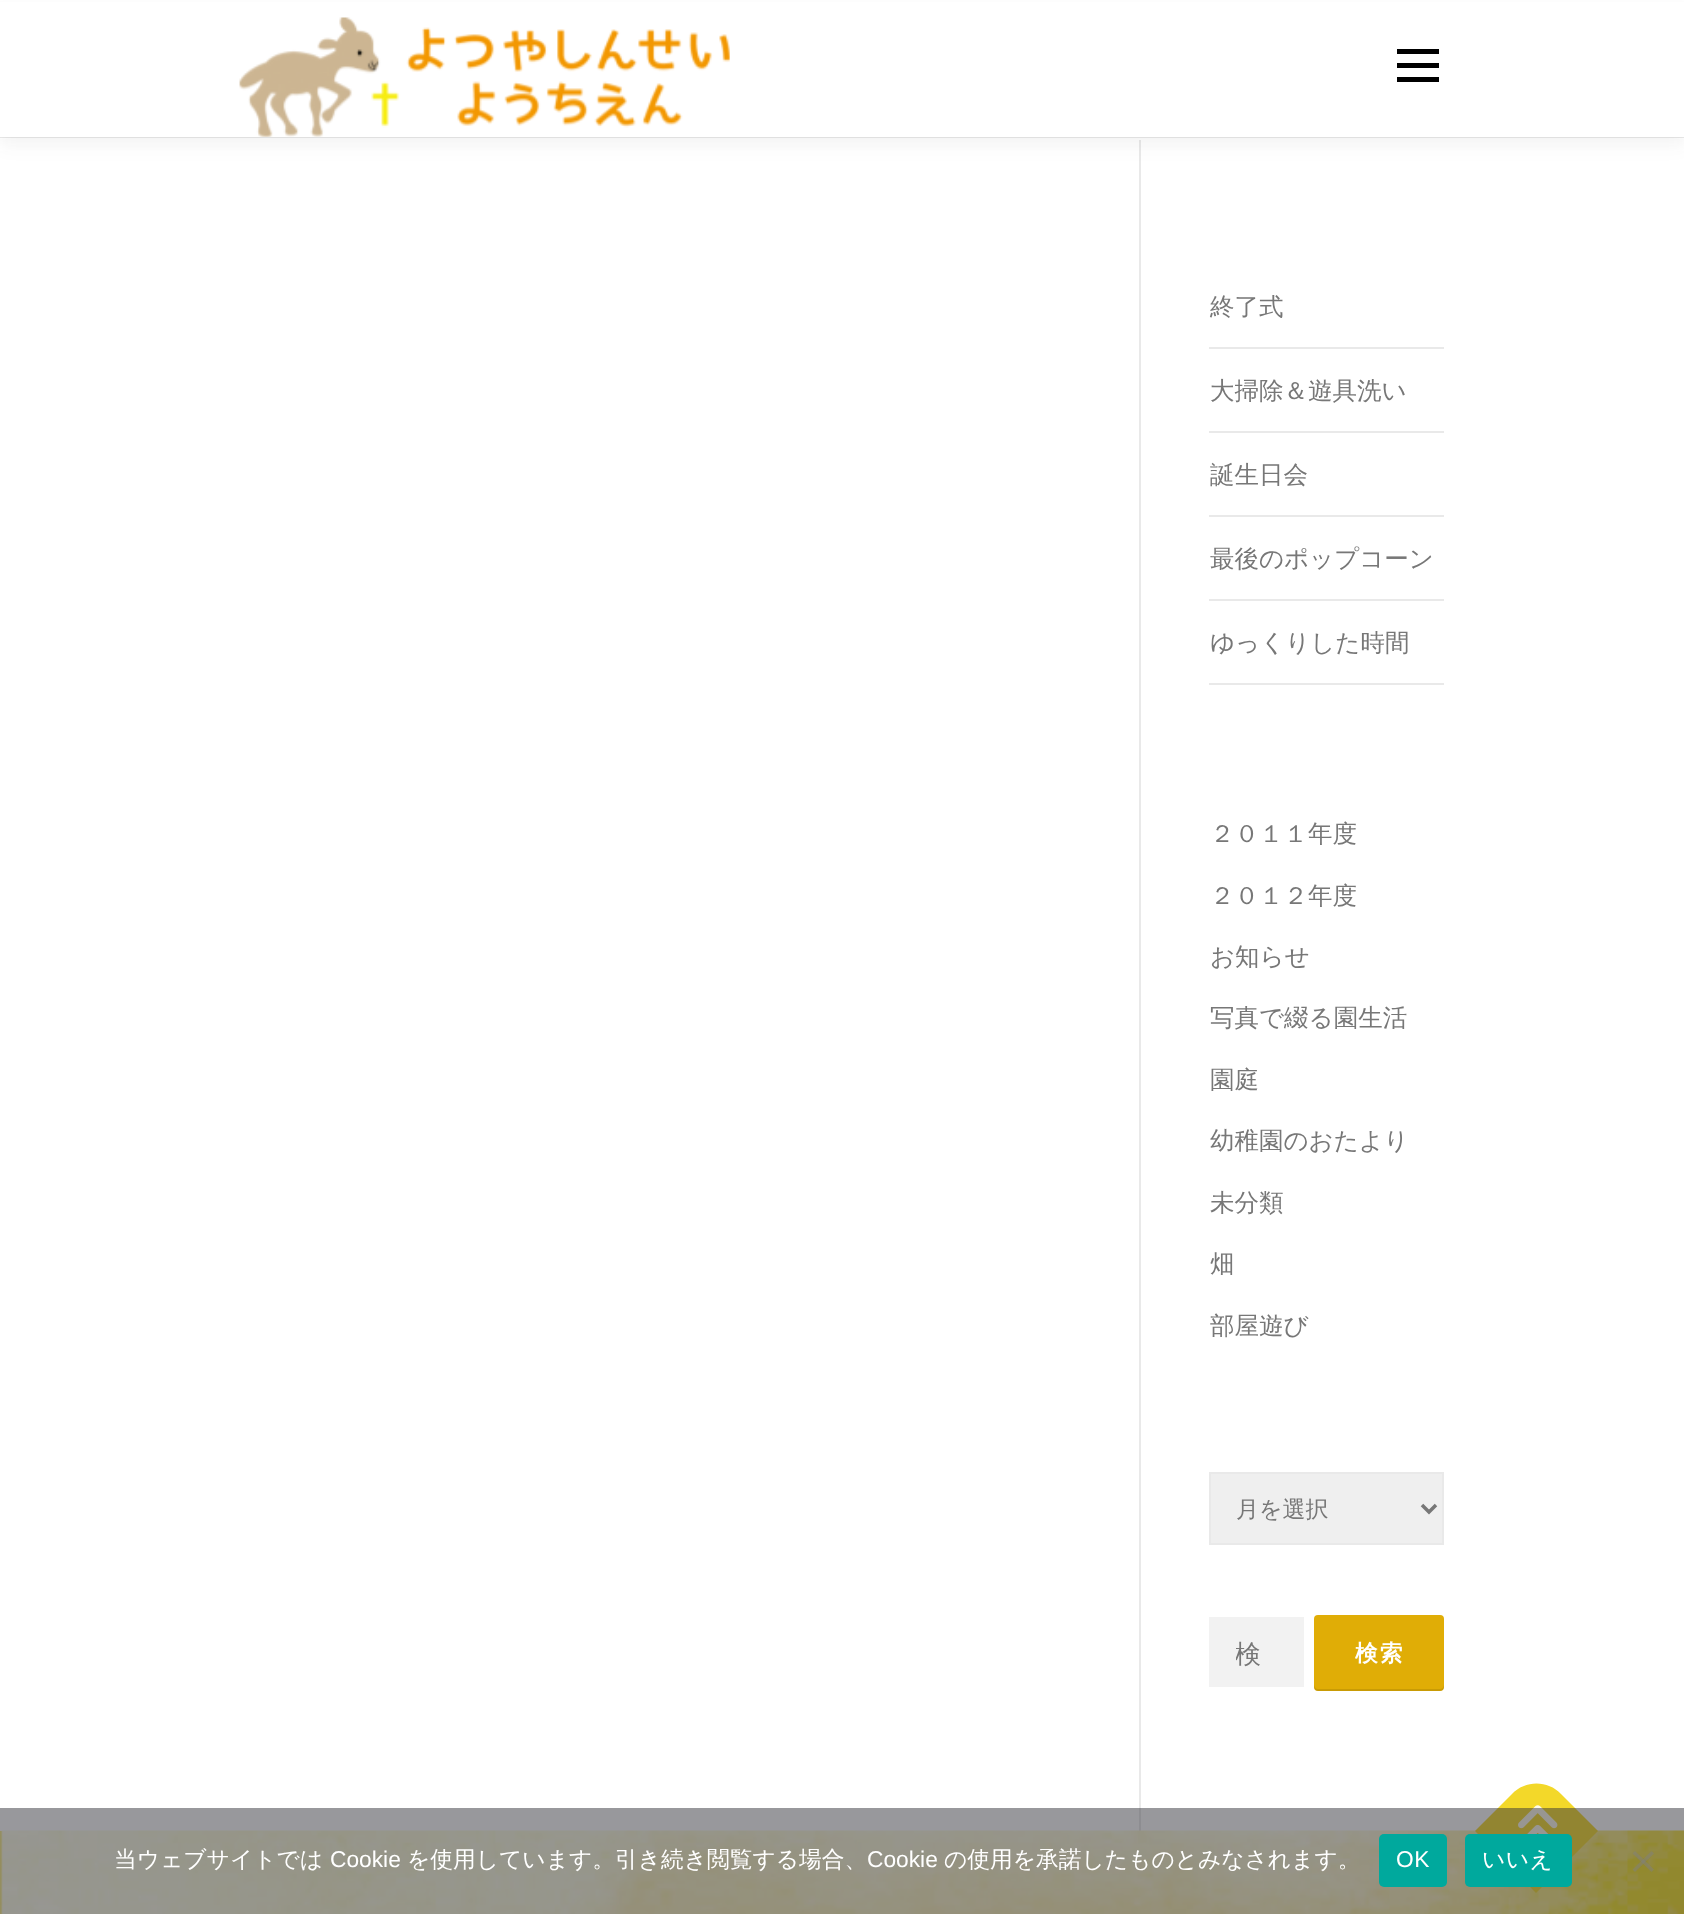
(async () => {
const canvas = document.querySelector("canvas")
canvas.width = 1684
canvas.height = 1914
const c = canvas.getContext("2d")
c.miterLimit = 4
c.fontKerning = "normal"
function T(s,x,y){c.fillText(s,x,y)}
function R(x,y,w,h){c.fillRect(x,y,w,h)}
function Q(x,y,w,h,r){c.beginPath();c.roundRect(x,y,w,h,r);c.fill()}
async function I(src,x,y,w,h){const img=new Image();img.src=src;await img.decode();c.drawImage(img,x,y,w,h)}
let path
c.fillStyle="#fff"
R(0,0,1684,1914)
c.fillStyle="#e9e9e9"
R(0,137,1684,1)
R(1139,140,2,1691)
c.fillStyle="#3232320f"
c.filter="blur(9px)"
c.beginPath()
c.rect(0,9,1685,136)
c.fill()
c.filter="none"
c.fillStyle="#fff"
R(0,2,1684,135)
await I("1.png",239,17,491,120)
c.fillStyle="#000"
R(1397,63,42,5)
R(1397,49,42,5)
R(1397,77,42,5)
c.fillStyle="#e9e9e9"
R(1209,347,235,2)
c.font="500 24.5px WenQuanYi Zen Hei"
c.fillStyle="#777"
T("終了式",1210,315)
c.fillStyle="#e9e9e9"
R(1209,431,235,2)
c.fillStyle="#777"
T("大掃除＆遊具洗い",1210,399)
c.fillStyle="#e9e9e9"
R(1209,515,235,2)
c.fillStyle="#777"
T("誕生日会",1210,483)
c.fillStyle="#e9e9e9"
R(1209,599,235,2)
c.fillStyle="#777"
T("最後のポップコーン",1210,567)
c.fillStyle="#e9e9e9"
R(1209,683,235,2)
c.fillStyle="#777"
T("ゆっくりした時間",1210,651)
T("２０１１年度",1210,842)
T("２０１２年度",1210,904)
T("お知らせ",1210,965)
T("写真で綴る園生活",1210,1026)
T("園庭",1210,1088)
T("幼稚園のおたより",1210,1149)
T("未分類",1210,1211)
T("畑",1210,1272)
T("部屋遊び",1210,1334)
c.fillStyle="#efefef"
c.beginPath()
c.rect(1210,1473,233,71)
c.fill()
c.strokeStyle="#e9e9e9"
c.lineWidth=2
c.stroke()
path = new Path2D("M1422 1505l7 7l7-7")
c.strokeStyle="#777"
c.lineWidth=3.5
c.stroke(path)
c.font="500 23px WenQuanYi Zen Hei"
c.fillStyle="#777"
T("月を選択",1236,1517)
c.fillStyle="#f2f2f2"
R(1209,1617,95,70)
c.save()
c.beginPath()
c.rect(1236,1635,36,36)
c.clip()
c.font="500 26px WenQuanYi Zen Hei"
c.fillStyle="#777"
T("検",1235,1663)
c.restore()
c.fillStyle="#e0ad06"
Q(1314,1615,130,76,4)
c.fillStyle="#0000001a"
path = new Path2D("M1314 1685v2c0 2 2 4 4 4h122c2 0 4-2 4-4v-2c0 2-2 4-4 4h-122c-2 0-4-2-4-4z")
c.fill(path)
c.letterSpacing="2px"
c.font="bold 22.75px WenQuanYi Zen Hei"
c.fillStyle="#fff"
T("検索",1355,1661)
c.fillStyle="#f3d829"
R(0,1831,3,83)
await I("2.png",0,1830,1684,84)
path = new Path2D("M1475 1831l37-37c13-14 36-14 49 0l37 37l-62 62z")
c.fill(path)
await I("3.png",1518,1805,40,29)
c.fillStyle="#32323a80"
R(0,1808,1684,106)
c.letterSpacing="0px"
c.font="500 22.75px WenQuanYi Zen Hei"
c.fillStyle="#fff"
T("当ウェブサイトでは",114,1867)
c.font="22.75px Liberation Sans"
T("Cookie",330,1867)
c.font="500 22.75px WenQuanYi Zen Hei"
T("を使用しています。引き続き閲覧する場合、",407,1867)
c.font="22.75px Liberation Sans"
T("Cookie",867,1867)
c.font="500 22.75px WenQuanYi Zen Hei"
T("の使用を承諾したものとみなされます。",944,1867)
c.fillStyle="#00a99d"
Q(1379,1834,68,53,5)
c.letterSpacing="0.5px"
c.font="22.75px Liberation Sans"
c.fillStyle="#fff"
T("OK",1396,1867)
c.fillStyle="#00a99d"
Q(1465,1834,107,53,5)
c.font="500 22.75px WenQuanYi Zen Hei"
c.fillStyle="#fff"
T("いいえ",1482,1867)
c.fillStyle="#80808080"
path = new Path2D("M1651.5 1851l2.5 2.5l-19 18.5l-2.5-2.5z")
c.fill(path)
path = new Path2D("M1632.5 1853.5l2.5-2.5l19 18.5l-2.5 2.5z")
c.fill(path)
})()
